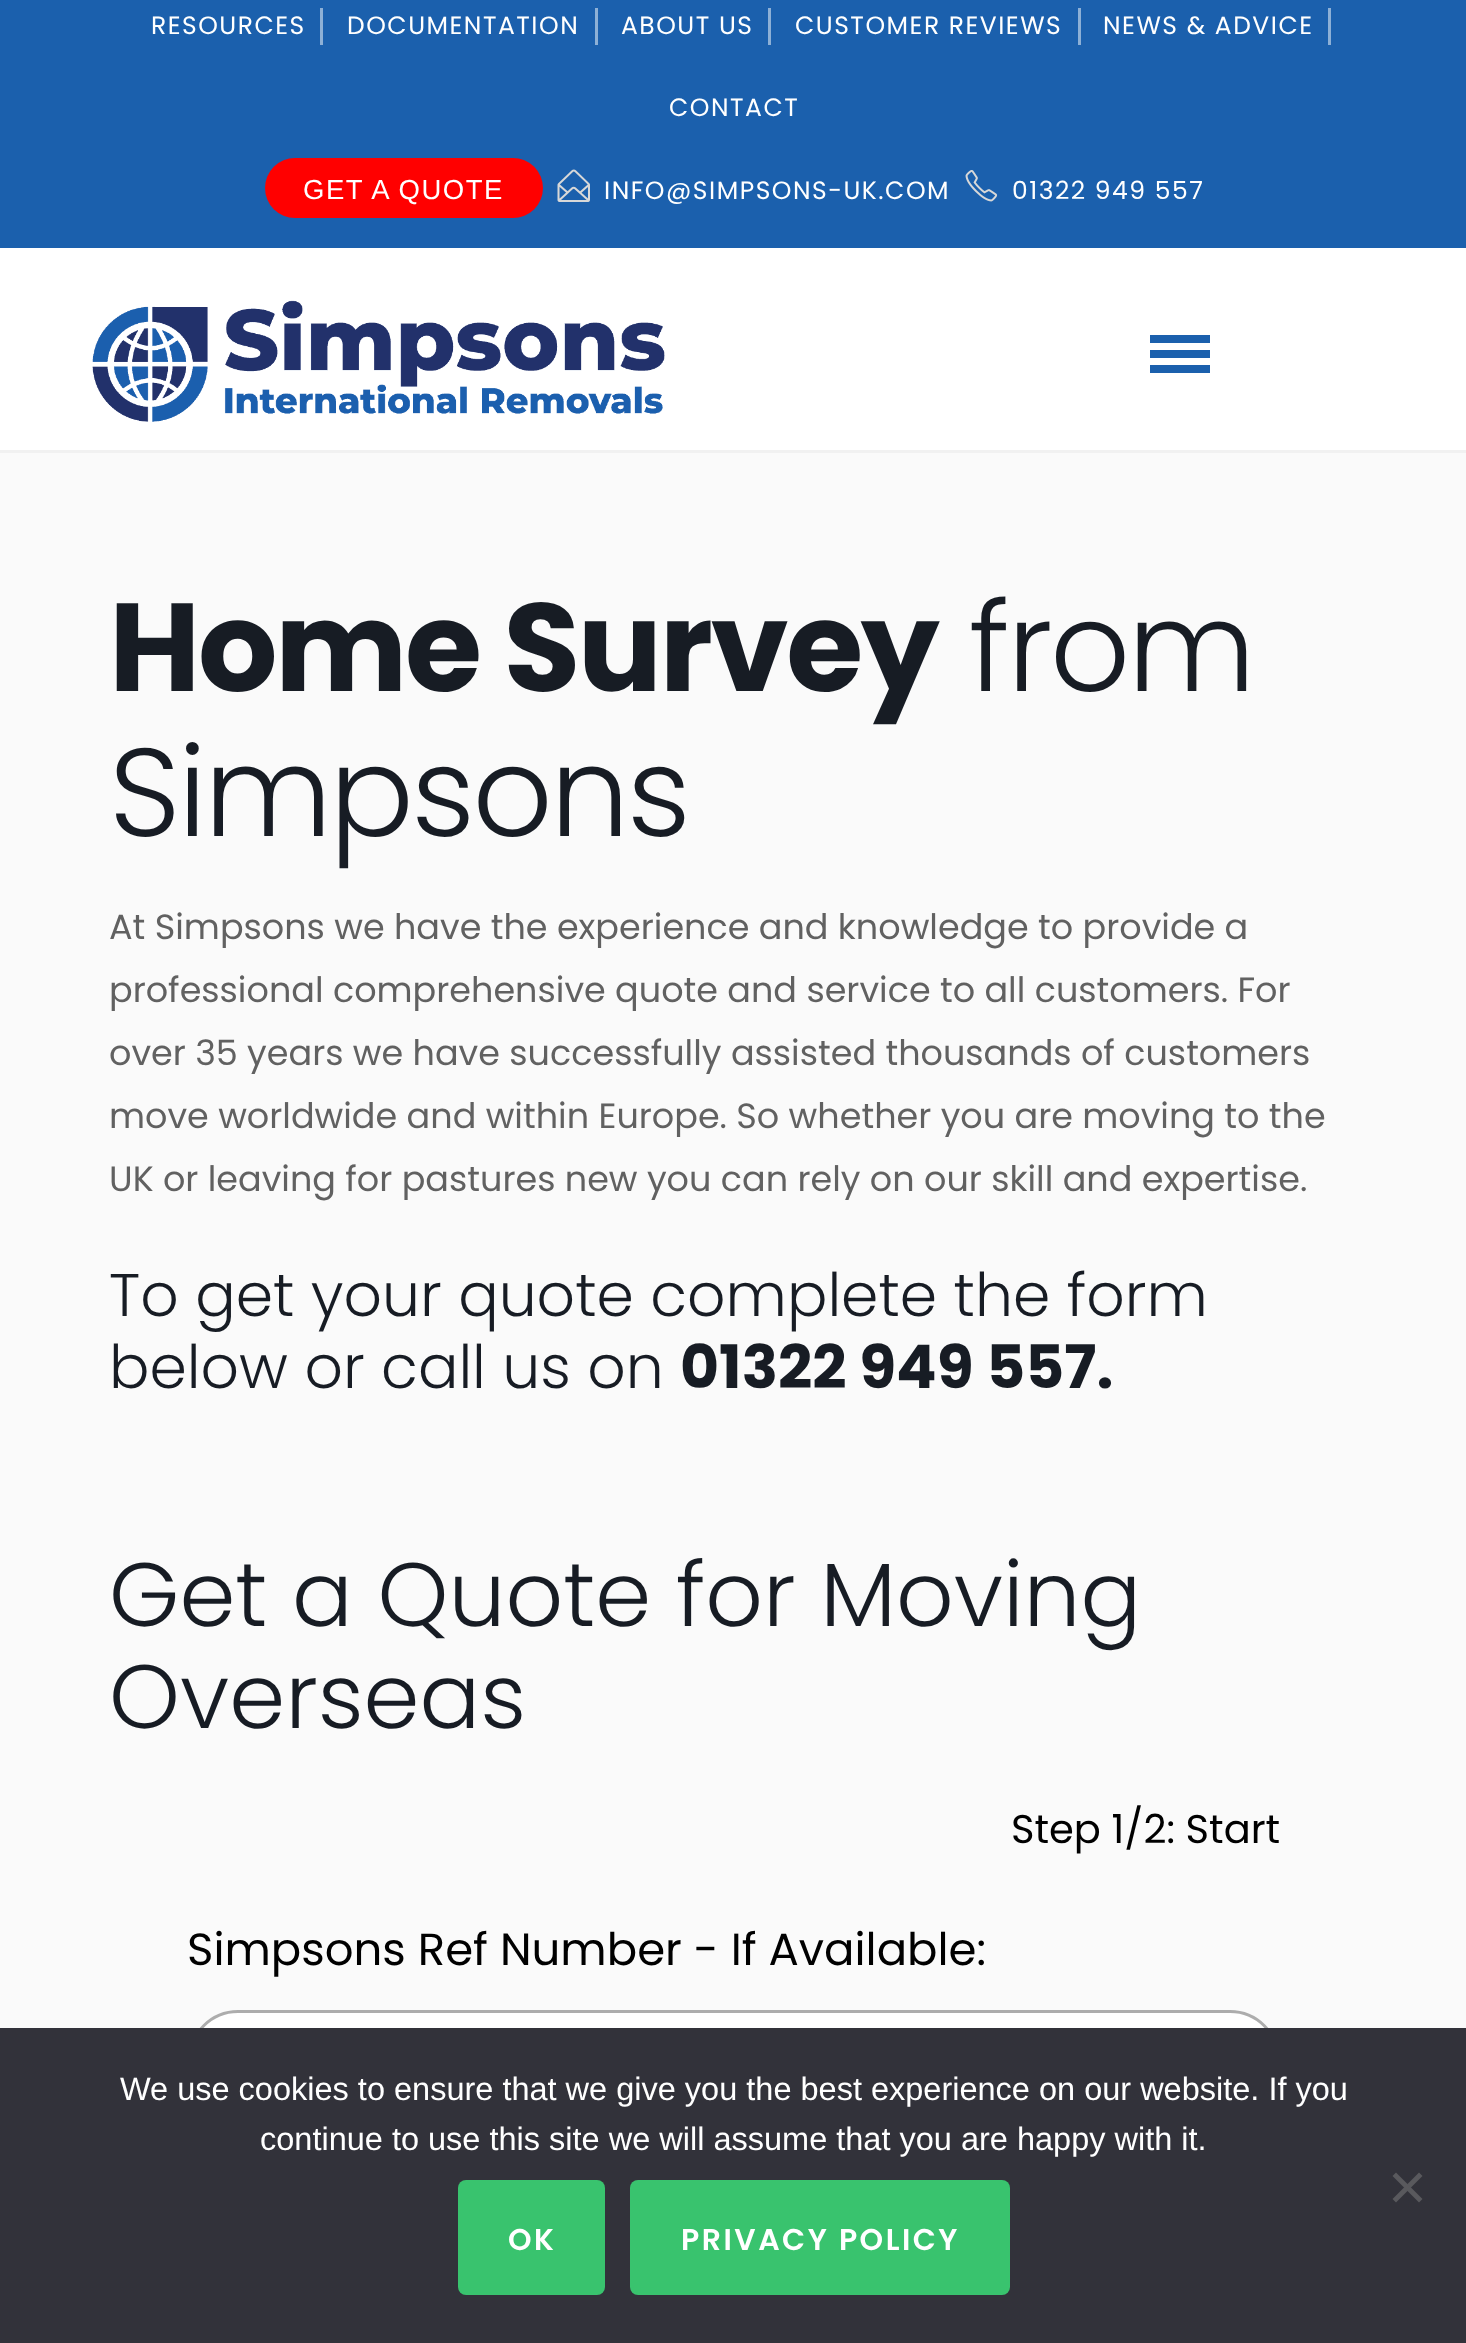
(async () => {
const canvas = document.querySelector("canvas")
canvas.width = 1466
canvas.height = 2343
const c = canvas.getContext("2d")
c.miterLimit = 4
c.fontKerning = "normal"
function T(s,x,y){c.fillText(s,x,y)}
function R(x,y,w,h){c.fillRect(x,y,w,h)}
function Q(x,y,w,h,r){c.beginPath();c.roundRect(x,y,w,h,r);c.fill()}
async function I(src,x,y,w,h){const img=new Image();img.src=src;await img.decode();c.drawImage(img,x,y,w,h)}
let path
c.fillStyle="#fff"
R(0,0,1466,2343)
c.fillStyle="#1b60ad"
R(0,0,1466,248)
c.letterSpacing="1.5px"
c.font="25px Poppins"
c.fillStyle="#fff"
T("RESOURCES",151,34)
c.fillStyle="#8db0d6"
R(320,8,3,37)
c.fillStyle="#fff"
T("DOCUMENTATION",347,34)
c.fillStyle="#8db0d6"
R(595,8,3,37)
c.fillStyle="#fff"
T("ABOUT US",621,34)
c.fillStyle="#8db0d6"
R(768,8,3,37)
c.fillStyle="#fff"
T("CUSTOMER REVIEWS",795,34)
c.fillStyle="#8db0d6"
R(1078,8,3,37)
c.fillStyle="#fff"
T("NEWS & ADVICE",1103,34)
c.fillStyle="#8db0d6"
R(1328,8,3,37)
c.fillStyle="#fff"
T("CONTACT",669,116)
c.fillStyle="#f00"
Q(265,158,278,60,30)
c.font="27.5px Liberation Sans"
c.fillStyle="#fff"
T("GET A QUOTE",303,199)
await I("1.png",557,169,33,33)
c.font="25px Poppins"
T("INFO@SIMPSONS-UK.COM",604,199)
await I("2.png",965,170,33,32)
T("01322 949 557",1012,199)
c.fillStyle="#f1f1f1"
R(0,450,1466,3)
await I("3.png",92,300,573,122)
c.fillStyle="#1b60ad"
R(1150,335,60,8)
R(1150,350,60,8)
R(1150,365,60,8)
c.fillStyle="#fafafa"
R(0,453,1466,1575)
c.letterSpacing="-2.5px"
c.font="bold 125px Poppins"
c.fillStyle="#171c24"
T("Home Survey",109,691)
c.font="300 125px Poppins"
T("from",969,691)
T("Simpsons",109,836)
c.letterSpacing="0px"
c.font="35px Poppins"
c.fillStyle="#616161"
T("At Simpsons we have the experience and knowledge to provide a",109,939)
T("professional comprehensive quote and service to all customers. For",109,1002)
T("over 35 years we have successfully assisted thousands of customers",109,1065)
T("move worldwide and within Europe. So whether you are moving to the",109,1128)
T("UK or leaving for pastures new you can rely on our skill and expertise.",109,1191)
c.font="300 60px Poppins"
c.fillStyle="#171c24"
T("To get your quote complete the form",109,1316)
T("below or call us on",109,1388)
c.font="bold 60px Poppins"
T("01322 949 557.",680,1388)
c.font="300 90px Poppins"
T("Get a Quote for Moving",109,1626)
T("Overseas",109,1728)
c.font="40px Poppins"
c.fillStyle="#000"
T("Step 1/2: Start",1011,1843)
c.font="45px Poppins"
T("Simpsons Ref Number - If Available:",187,1965)
c.fillStyle="#fff"
c.beginPath()
c.roundRect(189.5,2011.5,1089,97,48.5)
c.fill()
c.strokeStyle="#adadad"
c.lineWidth=3
c.stroke()
c.fillStyle="#32323a"
R(0,2028,1466,315)
c.font="32.5px Liberation Sans"
c.fillStyle="#fff"
T("We use cookies to ensure that we give you the best experience on our website. If you",120,2100)
T("continue to use this site we will assume that you are happy with it.",260,2150)
c.fillStyle="#59595d"
path = new Path2D("M1419 2172.5l3.5 3.5l-26.5 26.5l-3.5-3.5z")
c.fill(path)
path = new Path2D("M1392.5 2176l3.5-3.5l26.5 26.5l-3.5 3.5z")
c.fill(path)
c.fillStyle="#39c36e"
Q(458,2180,147,115,8)
c.letterSpacing="2.5px"
c.font="600 30px Poppins"
c.fillStyle="#fff"
T("OK",508,2250)
c.fillStyle="#39c36e"
Q(630,2180,380,115,8)
c.fillStyle="#fff"
T("PRIVACY POLICY",681,2250)
})()
